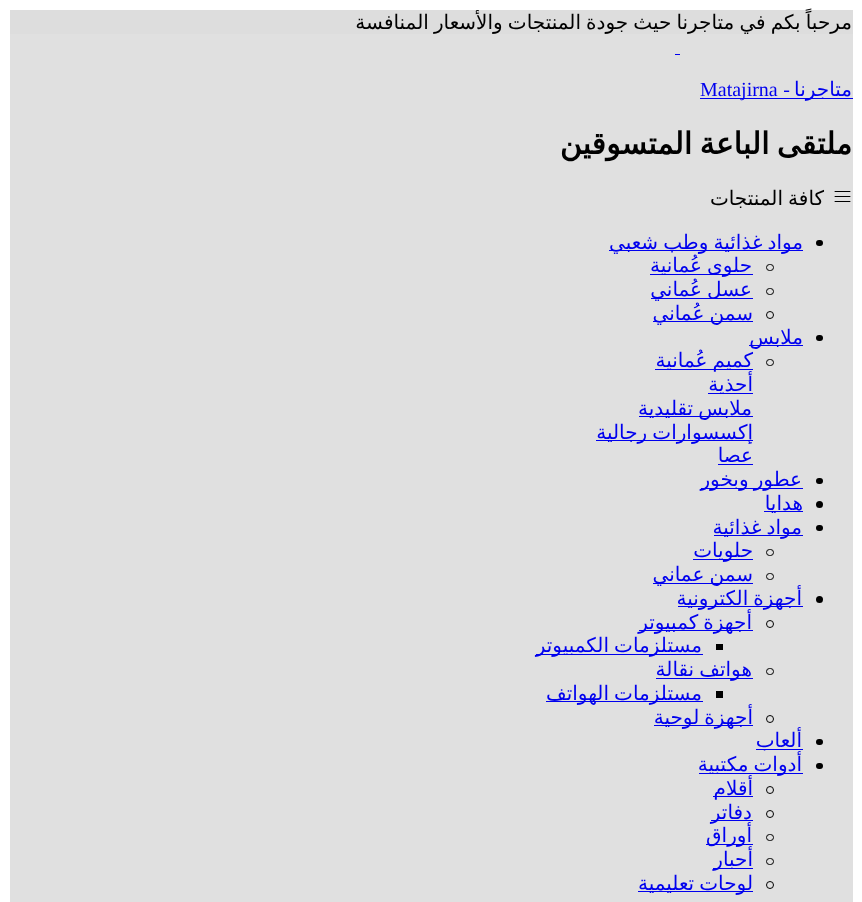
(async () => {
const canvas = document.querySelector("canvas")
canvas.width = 862
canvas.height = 902
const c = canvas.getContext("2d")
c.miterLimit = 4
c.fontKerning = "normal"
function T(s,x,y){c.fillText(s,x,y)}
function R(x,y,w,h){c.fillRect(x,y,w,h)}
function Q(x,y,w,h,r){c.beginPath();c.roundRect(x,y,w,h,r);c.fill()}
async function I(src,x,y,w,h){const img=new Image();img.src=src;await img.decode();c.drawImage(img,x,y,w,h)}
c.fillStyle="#fff"
R(0,0,862,902)
c.fillStyle="#ddd"
R(10,10,843,24)
c.wordSpacing="-1.25px"
c.direction="rtl"
c.font="20px DejaVu Sans"
c.fillStyle="#000"
T("مرحباً بكم في متاجرنا حيث جودة المنتجات والأسعار المنافسة",852,29)
c.fillStyle="#e0e0e0"
R(10,34,843,868)
c.fillStyle="#00e"
R(675,54,5,1)
R(700,98,153,1)
c.wordSpacing="0px"
T("متاجرنا",852,96)
c.font="20px Liberation Serif"
T("-",790,96)
c.direction="ltr"
T("Matajirna",700,96)
c.wordSpacing="-2px"
c.direction="rtl"
c.font="bold 30px DejaVu Sans"
c.fillStyle="#000"
T("ملتقى الباعة المتسوقين",852,154)
await I("1.png",834,191,17,11)
c.wordSpacing="-1.25px"
c.font="20px DejaVu Sans"
T("كافة المنتجات",824,205)
Q(816,240,7,6,3)
c.fillStyle="#00e"
R(609,250,194,1)
T("مواد غذائية وطب شعبي",803,249)
c.beginPath()
c.roundRect(766.5,264.5,7,6,3)
c.strokeStyle="#000"
c.stroke()
R(650,274,103,1)
T("حلوى عُمانية",752,272)
c.beginPath()
c.roundRect(766.5,288.5,7,6,3)
c.stroke()
R(651,298,102,1)
T("عسل عُماني",752,296)
c.beginPath()
c.arc(770,315,3.5,0,7)
c.stroke()
R(653,321,100,1)
T("سمن عُماني",753,320)
c.fillStyle="#000"
Q(816,335,7,6,3)
c.fillStyle="#00e"
R(749,345,54,1)
c.wordSpacing="0px"
T("ملابس",803,344)
c.beginPath()
c.roundRect(766.5,359.5,7,6,3)
c.stroke()
R(655,369,98,1)
c.wordSpacing="-1.25px"
T("كميم عُمانية",753,367)
R(708,393,45,1)
c.wordSpacing="0px"
T("أحذية",753,391)
R(639,416,114,1)
c.wordSpacing="-1.25px"
T("ملابس تقليدية",752,415)
R(596,440,157,1)
T("إكسسوارات رجالية",753,439)
c.wordSpacing="0px"
T("عصا",753,462)
R(718,464,35,1)
c.fillStyle="#000"
Q(816,478,7,6,3)
c.fillStyle="#00e"
R(701,488,102,1)
c.wordSpacing="-1.25px"
T("عطور وبخور",802,486)
c.fillStyle="#000"
c.beginPath()
c.arc(819.5,504.5,3.5,0,7)
c.fill()
c.fillStyle="#00e"
R(764,511,39,1)
c.wordSpacing="0px"
T("هدايا",803,510)
c.fillStyle="#000"
Q(816,525,7,6,3)
c.fillStyle="#00e"
R(714,535,89,1)
c.wordSpacing="-1.25px"
T("مواد غذائية",802,534)
c.beginPath()
c.roundRect(766.5,549.5,7,6,3)
c.stroke()
R(693,559,60,1)
c.wordSpacing="0px"
T("حلويات",753,557)
c.beginPath()
c.roundRect(766.5,573.5,7,6,3)
c.stroke()
R(653,583,100,1)
c.wordSpacing="-1.25px"
T("سمن عماني",753,581)
c.fillStyle="#000"
c.beginPath()
c.arc(819.5,599.5,3.5,0,7)
c.fill()
c.fillStyle="#00e"
R(678,606,125,1)
T("أجهزة الكترونية",802,605)
c.beginPath()
c.arc(770,624,3.5,0,7)
c.stroke()
R(639,630,114,1)
T("أجهزة كمبيوتر",752,629)
c.fillStyle="#000"
R(716,644,7,6)
c.fillStyle="#00e"
R(536,654,167,1)
T("مستلزمات الكمبيوتر",702,652)
c.beginPath()
c.roundRect(766.5,668.5,7,6,3)
c.stroke()
R(656,678,97,1)
T("هواتف نقالة",752,676)
c.fillStyle="#000"
R(716,691,7,7)
c.fillStyle="#00e"
R(546,701,157,1)
T("مستلزمات الهواتف",702,700)
c.beginPath()
c.arc(770,719,3.5,0,7)
c.stroke()
R(654,725,99,1)
T("أجهزة لوحية",753,724)
c.fillStyle="#000"
Q(816,739,7,6,3)
c.fillStyle="#00e"
R(756,749,47,1)
c.wordSpacing="0px"
T("ألعاب",802,747)
c.fillStyle="#000"
Q(816,763,7,6,3)
c.fillStyle="#00e"
R(699,773,104,1)
c.wordSpacing="-1.25px"
T("أدوات مكتبية",802,771)
c.beginPath()
c.arc(770,790,3.5,0,7)
c.stroke()
R(713,796,40,1)
c.wordSpacing="0px"
T("أقلام",753,795)
c.beginPath()
c.arc(770,814,3.5,0,7)
c.stroke()
R(711,820,42,1)
T("دفاتر",752,819)
c.beginPath()
c.roundRect(766.5,834.5,7,6,3)
c.stroke()
R(706,844,47,1)
T("أوراق",752,842)
c.beginPath()
c.roundRect(766.5,858.5,7,6,3)
c.stroke()
R(713,868,40,1)
T("أحبار",753,866)
c.beginPath()
c.arc(770,885,3.5,0,7)
c.stroke()
R(638,891,115,1)
c.wordSpacing="-1.25px"
T("لوحات تعليمية",753,890)
})()
